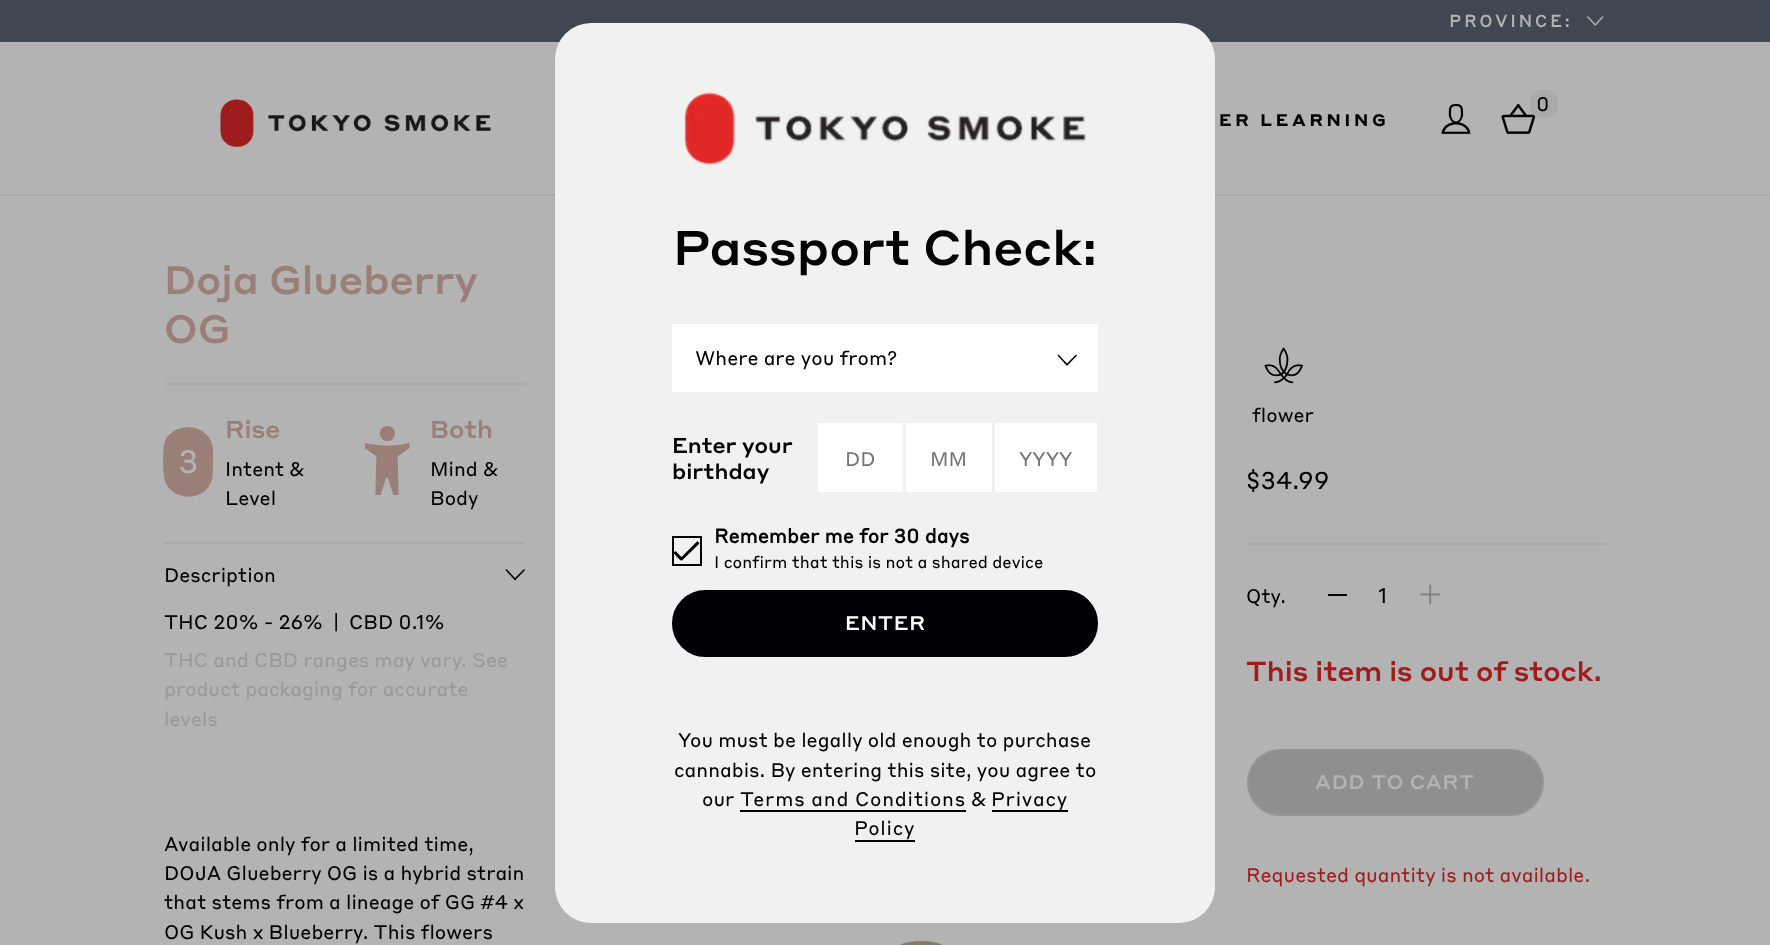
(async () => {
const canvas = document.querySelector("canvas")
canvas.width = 1770
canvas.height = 945
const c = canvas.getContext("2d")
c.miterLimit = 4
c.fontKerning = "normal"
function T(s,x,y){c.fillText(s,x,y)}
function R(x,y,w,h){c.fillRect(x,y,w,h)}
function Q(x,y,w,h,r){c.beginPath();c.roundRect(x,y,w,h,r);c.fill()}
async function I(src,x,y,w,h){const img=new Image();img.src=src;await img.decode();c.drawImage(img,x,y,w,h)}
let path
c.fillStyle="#b3b3b4"
R(0,0,1770,945)
c.fillStyle="#a9a9ab"
R(0,194,1770,2)
c.fillStyle="#404750"
R(0,0,1770,42)
c.letterSpacing="3px"
c.font="bold 16.5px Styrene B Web"
c.fillStyle="#b3b3b4"
T("PROVINCE:",1449,27)
await I("1.png",1587,16,17,10)
await I("2.png",220,99,271,49)
await I("3.png",1441,103,30,31)
c.fillStyle="#a9a9ab"
c.beginPath()
c.arc(1544,104,15,0,7)
c.fill()
await I("4.png",1501,103,35,31)
c.letterSpacing="0.75px"
c.font="19.5px Styrene B Web"
c.fillStyle="#000002"
T("0",1536,111)
c.letterSpacing="3.75px"
c.font="bold 16.5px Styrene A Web"
T("ER LEARNING",1219,126)
c.fillStyle="#f1f1f2"
Q(555,23,660,900,36)
await I("5.png",684,92,403,73)
c.letterSpacing="0px"
c.font="500 48px Styrene A Web"
c.fillStyle="#000002"
T("Passport Check:",673,265)
c.fillStyle="#fff"
R(672,324,426,68)
c.font="19.5px Styrene B Web"
c.fillStyle="#000002"
T("Where are you from?",695,365)
c.fillStyle="#000"
path = new Path2D("M1076 354.5l1 1l-10 10.5l-9.5-10.5l1-1l8.5 9z")
c.fill(path)
c.font="500 21px Styrene A Web"
c.fillStyle="#000002"
T("Enter your",672,453)
T("birthday",672,479)
c.fillStyle="#fff"
R(818,423,85,69)
c.font="19.5px Styrene B Web"
c.fillStyle="#757575"
T("DD",845,466)
c.fillStyle="#fff"
R(906,423,86,69)
c.fillStyle="#757575"
T("MM",930,466)
c.fillStyle="#fff"
R(995,423,102,69)
c.fillStyle="#757575"
T("YYYY",1019,466)
c.strokeStyle="#000005"
c.lineWidth=2
c.strokeRect(673,537,28,28)
c.fillStyle="#000005"
path = new Path2D("M682.5 560c-1.5 2-3.5-1.5-4.5-2l-4.5-5l2-2l6 6l16-16l2 2.5z")
c.fill(path)
c.font="bold 19.5px Styrene B Web"
c.fillStyle="#000002"
T("Remember me for 30 days",714,543)
c.font="16.5px Styrene B Web"
T("I confirm that this is not a shared device",714,568)
c.fillStyle="#000005"
c.beginPath()
c.roundRect(673,591,424,65,32.5)
c.fill()
c.stroke()
c.letterSpacing="0.75px"
c.font="500 19.5px Styrene A Web"
c.fillStyle="#fff"
T("ENTER",845,630)
c.letterSpacing="0px"
c.font="19.5px Styrene B Web"
c.fillStyle="#000002"
T("You must be legally old enough to purchase",678,747)
T("cannabis. By entering this site, you agree to",674,777)
T("our",702,806)
c.letterSpacing="0.75px"
T("Terms and Conditions",740,806)
c.fillStyle="#000005"
R(740,810,226,2)
c.letterSpacing="0px"
c.fillStyle="#000002"
T("&",971,806)
c.fillStyle="#000005"
R(992,810,76,2)
c.letterSpacing="0.75px"
c.fillStyle="#000002"
T("Privacy",991,806)
T("Policy",854,835)
c.fillStyle="#000005"
R(855,840,60,2)
c.fillStyle="#a9a9ab"
R(164,383,361,2)
c.letterSpacing="0px"
c.font="500 39px Styrene A Web"
c.fillStyle="#9a7f78"
T("Doja Glueberry",164,294)
T("OG",164,343)
c.fillStyle="#a9a9ab"
R(164,542,361,2)
c.fillStyle="#9a7f78"
path = new Path2D("M206 490c-14 13-40 6-42-14c-1-8-2-29 2-37c9-16 37-16 45 2c3 7 2 16 2 24c0 9 0 18-7 25z")
c.fill(path)
c.font="32px Styrene B Web"
c.fillStyle="#b3b3b4"
T("3",178,473)
c.font="500 24px Styrene A Web"
c.fillStyle="#9a7f78"
T("Rise",225,438)
c.font="19.5px Styrene B Web"
c.fillStyle="#000002"
T("Intent &",225,476)
T("Level",225,505)
await I("6.png",365,426,45,69)
c.font="500 24px Styrene A Web"
c.fillStyle="#9a7f78"
T("Both",430,438)
c.font="19.5px Styrene B Web"
c.fillStyle="#000002"
T("Mind &",430,476)
T("Body",430,505)
T("Description",164,582)
path = new Path2D("M524 569l1 1l-10 10.5l-9.5-10.5l1-1l8.5 9z")
c.fill(path)
T("THC 20% - 26%",164,629)
T("|",333,629)
T("CBD 0.1%",349,629)
c.fillStyle="#99999b"
T("THC and CBD ranges may vary. See",164,667)
T("product packaging for accurate",164,696)
T("levels",164,726)
c.fillStyle="#000002"
T("Available only for a limited time,",164,851)
T("DOJA Glueberry OG is a hybrid strain",164,880)
T("that stems from a lineage of GG #4 x",164,909)
T("OG Kush x Blueberry. This flowers",164,939)
await I("7.png",1264,347,39,37)
T("flower",1252,422)
c.fillStyle="#a9a9ab"
R(1247,543,360,2)
c.font="24px Styrene B Web"
c.fillStyle="#000002"
T("$34.99",1246,489)
c.font="19.5px Styrene B Web"
T("Qty.",1246,603)
R(1328,594,19,2)
c.font="21px Styrene B Web"
T("1",1378,603)
await I("8.png",1420,584,20,21)
c.font="500 27px Styrene A Web"
c.fillStyle="#9f1b1c"
T("This item is out of stock.",1246,681)
c.fillStyle="#8f8f91"
Q(1247,749,297,67,33.5)
c.beginPath()
c.roundRect(1248,750,295,65,32.5)
c.strokeStyle="#a9a9ab33"
c.stroke()
c.letterSpacing="0.75px"
c.font="500 19.5px Styrene A Web"
c.fillStyle="#b3b3b4"
T("ADD TO CART",1315,789)
c.letterSpacing="0px"
c.font="19.5px Styrene B Web"
c.fillStyle="#9f1b1c"
T("Requested quantity is not available.",1246,882)
await I("9.png",900,940,43,5)
})()
